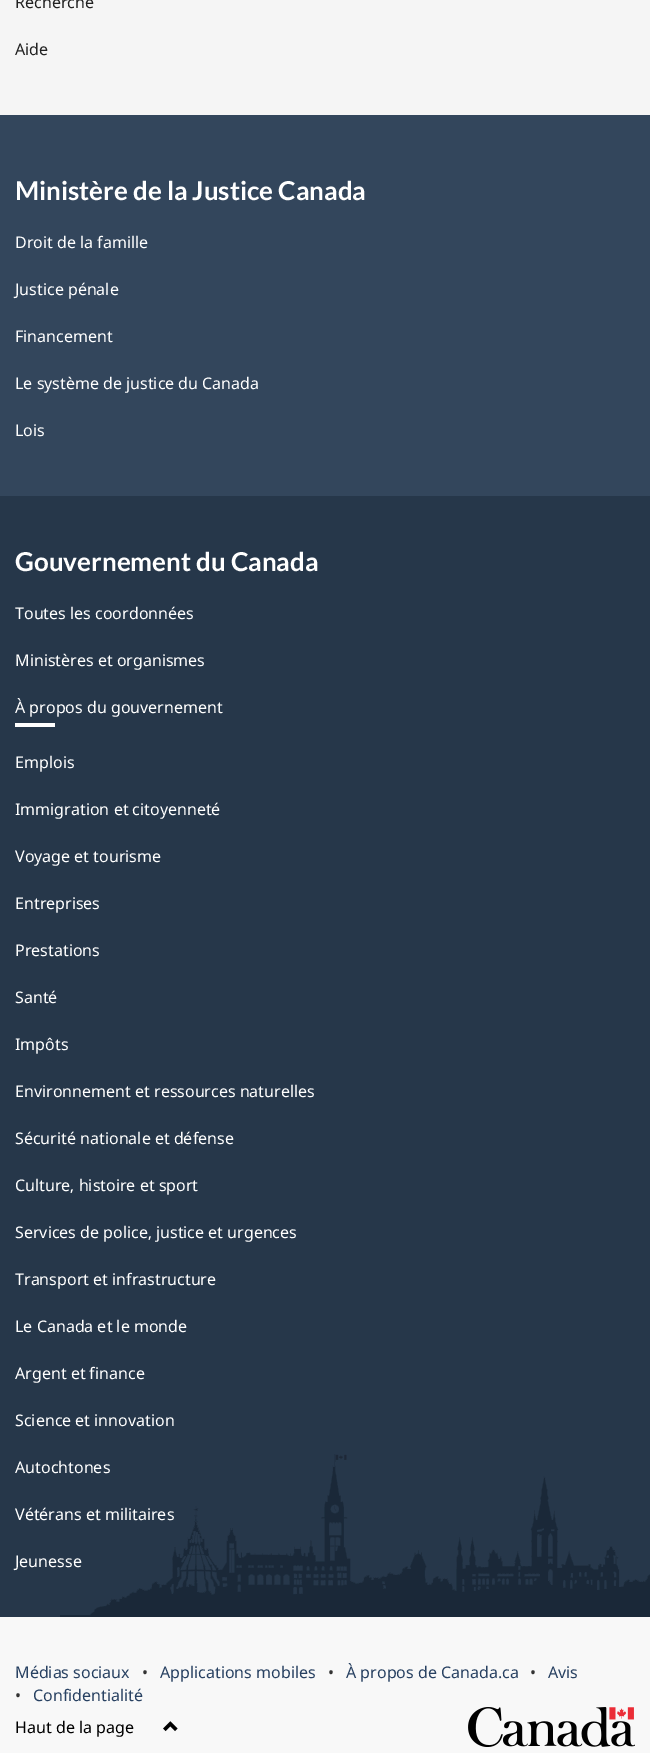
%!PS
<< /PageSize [650 1753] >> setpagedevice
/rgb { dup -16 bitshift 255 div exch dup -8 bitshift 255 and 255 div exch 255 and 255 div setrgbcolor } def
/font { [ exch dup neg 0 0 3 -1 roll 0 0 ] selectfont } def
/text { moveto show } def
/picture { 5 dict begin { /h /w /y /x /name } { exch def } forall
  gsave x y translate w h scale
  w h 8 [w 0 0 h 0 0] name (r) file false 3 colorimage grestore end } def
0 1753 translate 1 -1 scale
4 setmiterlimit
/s1 { /NotoSans-Regular 16 font 16#222222 rgb } def
/s2 { /Lato-Bold 26 font 16#FFFFFF rgb } def
/s3 { /NotoSans-Regular 16 font 16#FFFFFF rgb } def
/s4 { /NotoSans-Regular 16 font 16#284162 rgb } def
/s5 { /NotoSans-Regular 16 font 16#333333 rgb } def
/s6 { /NotoSans-Regular 16 font 16#000000 rgb } def
16#F5F5F5 rgb
0 0 650 1753 rectfill
s1
(Recherche) 15 8 text
(Aide) 15 55 text
16#33465C rgb
0 115 650 381 rectfill
s2
(Ministère de la Justice Canada) 15 200 text
s3
(Droit de la famille) 15 248 text
(Justice pénale) 15 295 text
(Financement) 15 342 text
(Le système de justice du Canada) 15 389 text
(Lois) 15 436 text
16#26374A rgb
0 496 650 1121 rectfill
(pic1.raw) 60 1454 590 163 picture
s2
(Gouvernement du Canada) 15 571 text
s3
(Toutes les coordonnées) 15 619 text
(Ministères et organismes) 15 666 text
(À propos du gouvernement) 15 713 text
15 723 40 4 rectfill
(Emplois) 15 768 text
(Immigration et citoyenneté) 15 815 text
(Voyage et tourisme) 15 862 text
(Entreprises) 15 909 text
(Prestations) 15 956 text
(Santé) 15 1003 text
(Impôts) 15 1050 text
(Environnement et ressources naturelles) 15 1097 text
(Sécurité nationale et défense) 15 1144 text
(Culture, histoire et sport) 15 1191 text
(Services de police, justice et urgences) 15 1238 text
(Transport et infrastructure) 15 1285 text
(Le Canada et le monde) 15 1332 text
(Argent et finance) 15 1379 text
(Science et innovation) 15 1426 text
(Autochtones) 15 1473 text
(Vétérans et militaires) 15 1520 text
(Jeunesse) 15 1567 text
16#F8F8F8 rgb
0 1617 650 136 rectfill
s4
(Médias sociaux) 15 1678 text
s5
(•) 142 1678 text
s4
(Applications mobiles) 160 1678 text
s5
(•) 328 1678 text
s4
(À propos de Canada.ca) 346 1678 text
s5
(•) 530 1678 text
s4
(Avis) 548 1678 text
s5
(•) 15 1701 text
s4
(Confidentialité) 33 1701 text
s6
(Haut de la page) 15 1733 text
(pic2.raw) 163 1721 15 11 picture
(pic3.raw) 468 1707 167 40 picture
showpage
